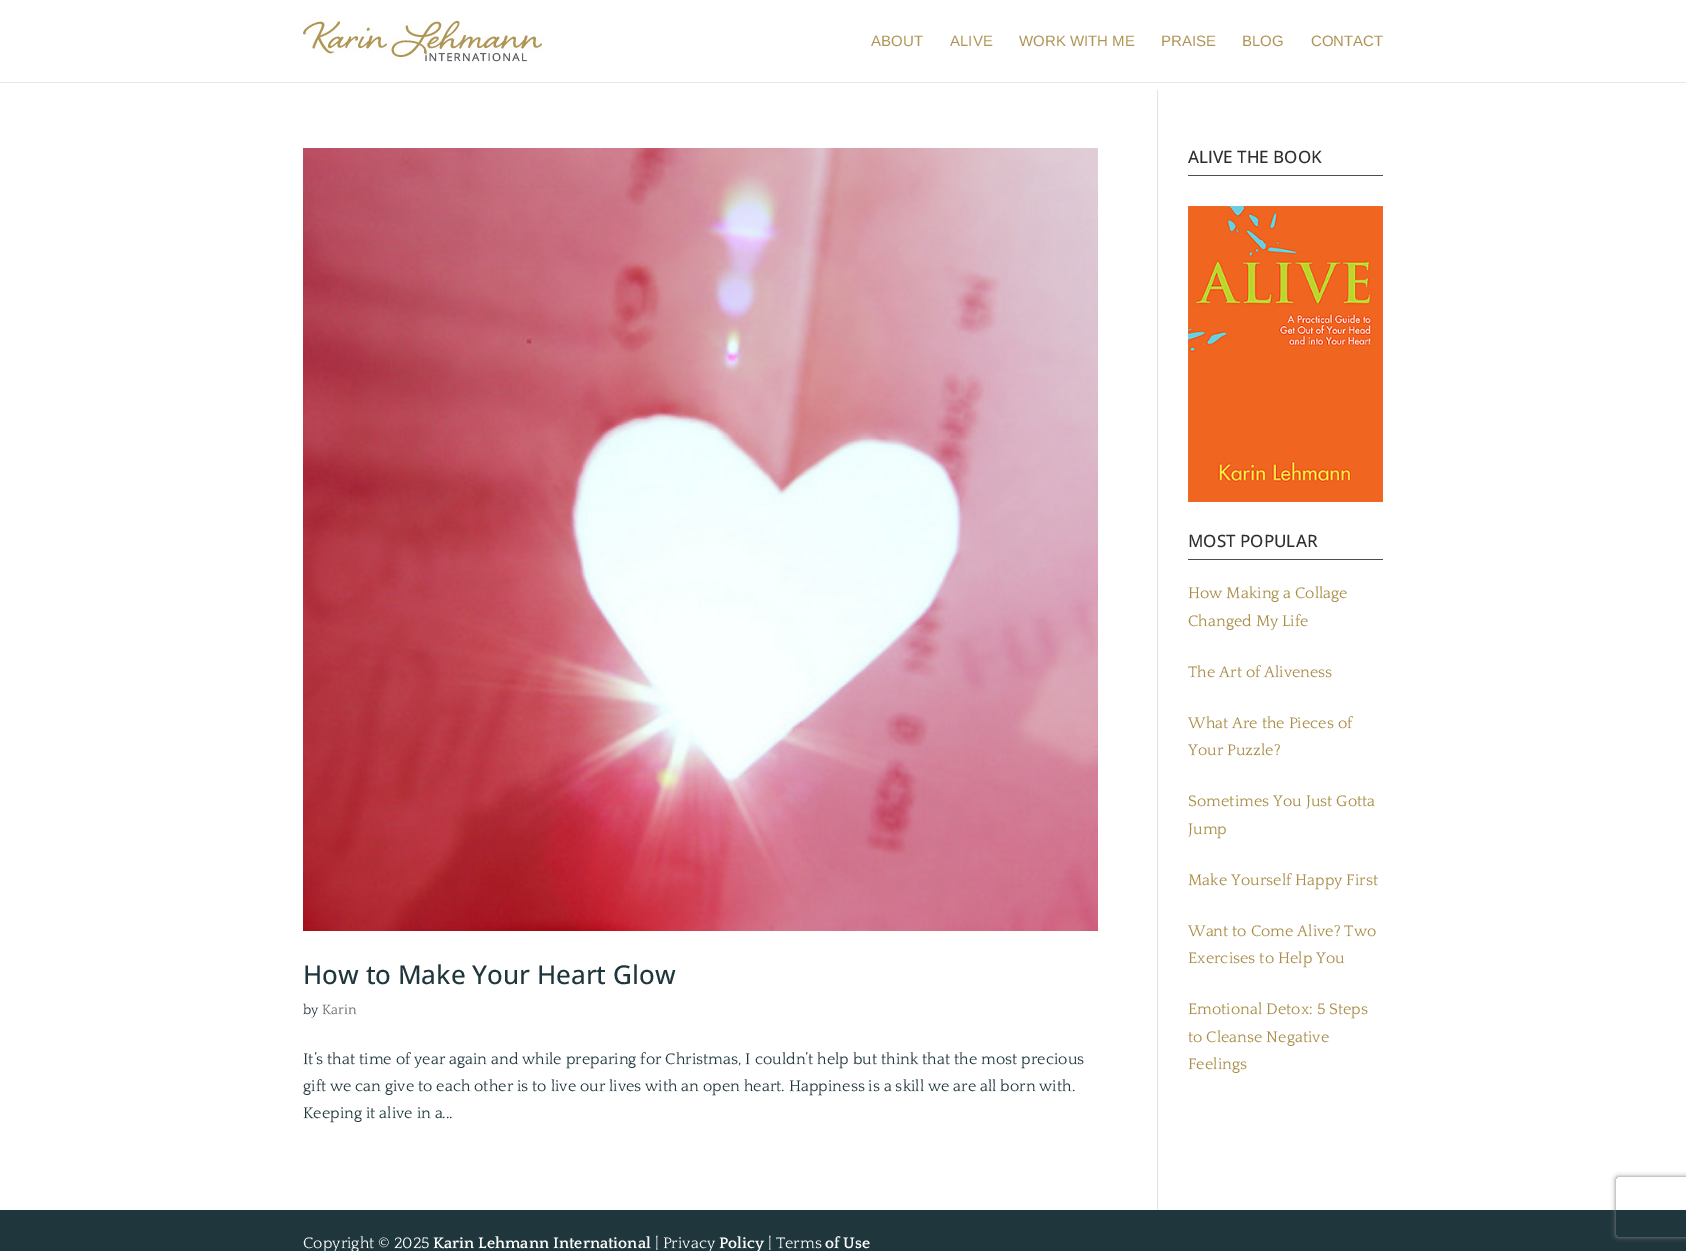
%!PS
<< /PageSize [1686 1251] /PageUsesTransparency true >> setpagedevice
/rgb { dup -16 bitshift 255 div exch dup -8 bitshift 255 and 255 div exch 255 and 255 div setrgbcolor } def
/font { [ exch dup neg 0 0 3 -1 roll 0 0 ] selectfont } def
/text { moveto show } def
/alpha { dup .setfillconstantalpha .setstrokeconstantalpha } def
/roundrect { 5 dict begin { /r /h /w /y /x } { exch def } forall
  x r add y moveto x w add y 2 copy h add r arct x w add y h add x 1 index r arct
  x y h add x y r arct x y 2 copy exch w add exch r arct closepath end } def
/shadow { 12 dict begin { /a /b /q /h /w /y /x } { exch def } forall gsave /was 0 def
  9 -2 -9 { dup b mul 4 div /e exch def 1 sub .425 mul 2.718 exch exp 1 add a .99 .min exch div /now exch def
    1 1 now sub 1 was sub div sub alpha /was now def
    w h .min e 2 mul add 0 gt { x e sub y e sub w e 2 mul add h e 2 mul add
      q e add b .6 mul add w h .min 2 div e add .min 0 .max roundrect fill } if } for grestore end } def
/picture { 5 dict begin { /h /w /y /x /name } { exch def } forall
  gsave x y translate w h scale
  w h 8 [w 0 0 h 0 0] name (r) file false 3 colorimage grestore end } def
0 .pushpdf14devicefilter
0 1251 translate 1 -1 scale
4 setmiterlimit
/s1 { /LiberationSans-Regular 15 font 16#AF9555 rgb } def
/s2 { /OpenSans-Medium 26 font 16#1F363D rgb } def
/s3 { /Quattrocento-Regular 14 font 16#1F363D rgb } def
/s4 { /Quattrocento-Regular 14 font 16#666666 rgb } def
/s5 { /Quattrocento-Regular 16 font 16#1F363D rgb } def
/s6 { /OpenSans-Medium 17 font 16#2E2E2E rgb } def
/s7 { /Quattrocento-Regular 16 font 16#A88B44 rgb } def
/s8 { /Quattrocento-Regular 16 font 16#FFFFFF rgb } def
/s9 { /Quattrocento-Bold 16 font 16#FFFFFF rgb } def
16#FFFFFF rgb
0 0 1686 1251 rectfill
16#E6E6E6 rgb
0 82 1686 1 rectfill
(pic1.raw) 303 20 240 42 picture
s1
(ABOUT) 871 46 text
(ALIVE) 950 46 text
(WORK WITH ME) 1019 46 text
(PRAISE) 1161 46 text
(BLOG) 1242 46 text
(CONTACT) 1311 46 text
16#E2E2E2 rgb
1157 90 1 1120 rectfill
(pic2.raw) 303 148 795 783 picture
s2
(How to Make Your Heart Glow) 303 984 text
s3
(by) 303 1014 text
s4
(Karin) 322 1014 text
s5
(It’s that time of year again and while preparing for Christmas, I couldn’t help but think that the most precious) 303 1064 text
(gift we can give to each other is to live our lives with an open heart. Happiness is a skill we are all born with.) 303 1091 text
(Keeping it alive in a...) 303 1118 text
16#4D4D4D rgb
1188 175 195 1 rectfill
s6
(ALIVE THE BOOK) 1188 163 text
(pic3.raw) 1188 206 195 296 picture
16#4D4D4D rgb
1188 559 195 1 rectfill
s6
(MOST POPULAR) 1188 547 text
s7
(How Making a Collage) 1188 598 text
(Changed My Life) 1188 626 text
(The Art of Aliveness) 1188 677 text
(What Are the Pieces of) 1188 728 text
(Your Puzzle?) 1188 755 text
(Sometimes You Just Gotta) 1188 806 text
(Jump) 1188 834 text
(Make Yourself Happy First) 1188 885 text
(Want to Come Alive? Two) 1188 936 text
(Exercises to Help You) 1188 963 text
(Emotional Detox: 5 Steps) 1188 1014 text
(to Cleanse Negative) 1188 1042 text
(Feelings) 1188 1069 text
16#1F363D rgb
0 1210 1686 41 rectfill
s8
(Copyright © 2025) 303 1248 text
s9
(Karin Lehmann International) 433 1248 text
s8
(| Privacy) 655 1248 text
s9
(Policy) 719 1248 text
s8
(| Terms) 768 1248 text
s9
(of Use) 825 1248 text
gsave
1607 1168 moveto 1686 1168 lineto 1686 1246 lineto 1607 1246 lineto closepath 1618 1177 moveto 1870 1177 lineto 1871 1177 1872 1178 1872 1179 curveto 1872 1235 lineto 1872 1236 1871 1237 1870 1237 curveto 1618 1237 lineto 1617 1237 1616 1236 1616 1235 curveto 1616 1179 lineto 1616 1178 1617 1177 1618 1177 curveto closepath eoclip newpath
16#808080 rgb
1616 1177 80 60 2 2.5 1 shadow
grestore
.poppdf14devicefilter showpage
